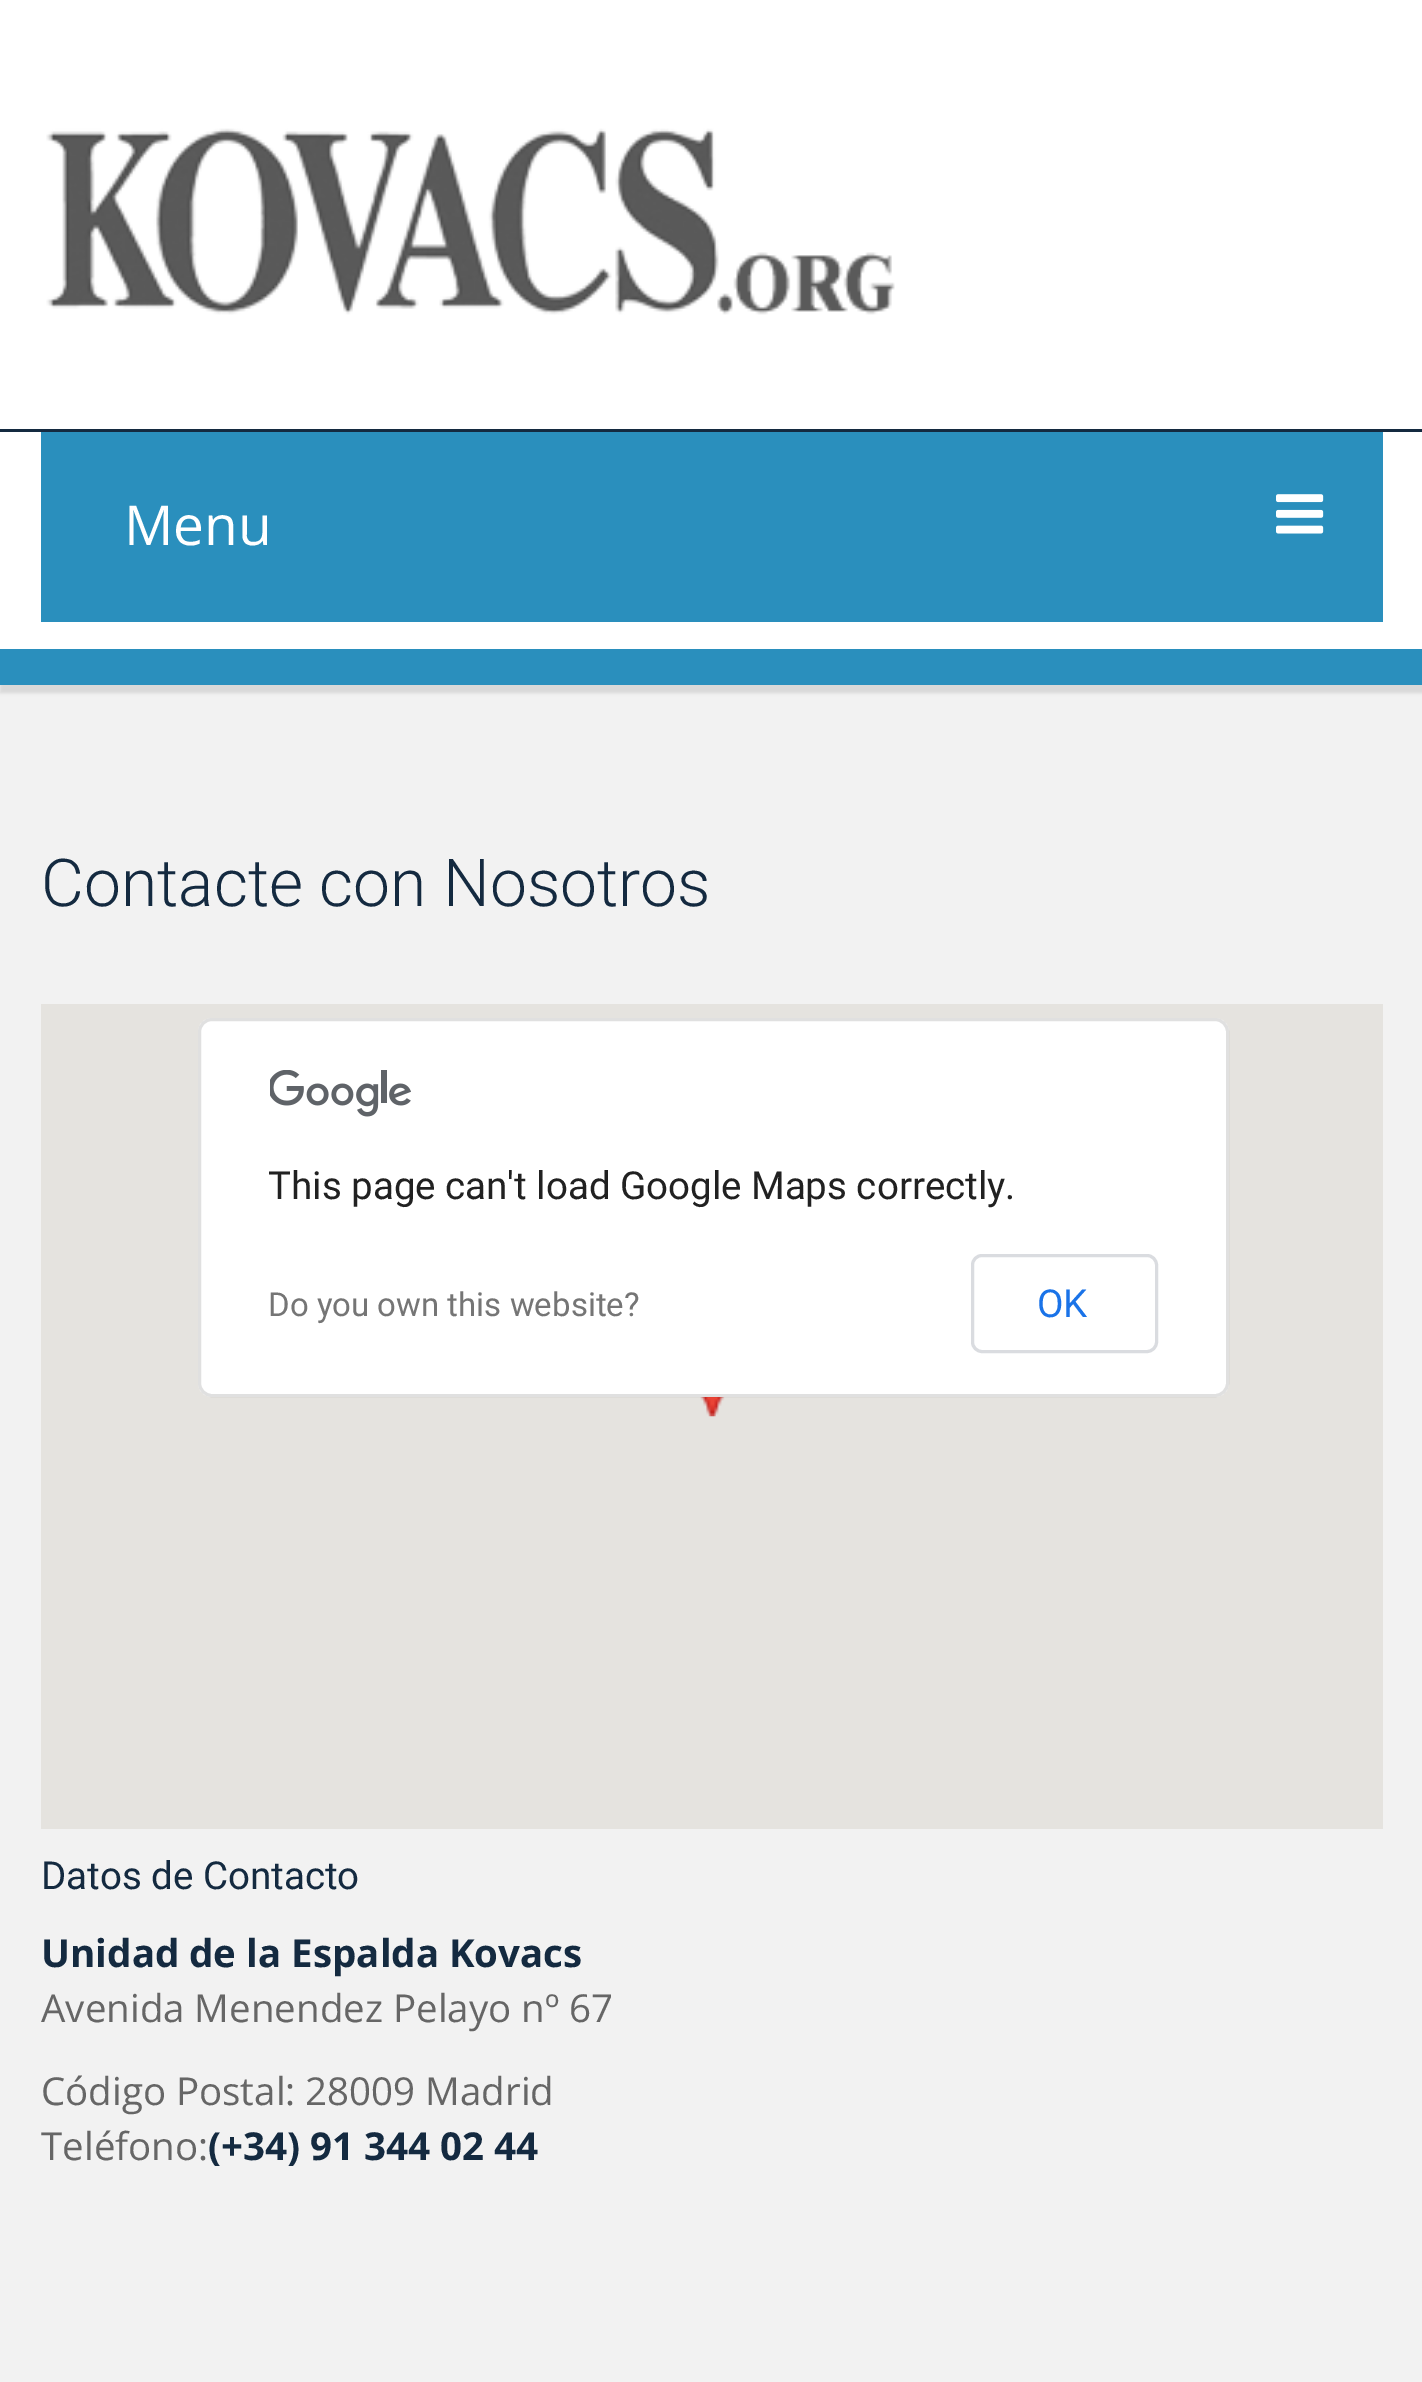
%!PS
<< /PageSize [1422 2382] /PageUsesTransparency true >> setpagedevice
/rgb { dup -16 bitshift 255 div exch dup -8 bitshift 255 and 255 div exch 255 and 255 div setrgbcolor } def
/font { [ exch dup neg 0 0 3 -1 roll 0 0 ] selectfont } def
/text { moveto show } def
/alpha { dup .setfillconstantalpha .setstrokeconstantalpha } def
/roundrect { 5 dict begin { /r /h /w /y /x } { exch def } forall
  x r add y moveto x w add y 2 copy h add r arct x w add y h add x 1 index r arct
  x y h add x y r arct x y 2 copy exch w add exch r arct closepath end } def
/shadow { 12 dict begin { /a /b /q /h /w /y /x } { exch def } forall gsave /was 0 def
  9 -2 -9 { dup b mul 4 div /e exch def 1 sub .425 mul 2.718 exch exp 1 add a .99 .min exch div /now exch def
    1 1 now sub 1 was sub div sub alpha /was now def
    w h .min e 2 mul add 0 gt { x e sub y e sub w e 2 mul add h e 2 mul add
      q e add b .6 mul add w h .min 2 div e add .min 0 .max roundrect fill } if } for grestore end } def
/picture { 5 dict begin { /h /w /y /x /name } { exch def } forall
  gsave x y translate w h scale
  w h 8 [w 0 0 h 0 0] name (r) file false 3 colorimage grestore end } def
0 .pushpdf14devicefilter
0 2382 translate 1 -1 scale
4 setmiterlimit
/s1 { /OpenSans-Regular 55 font 16#FFFFFF rgb } def
/s2 { /Roboto-Light 66 font 16#142A40 rgb } def
/s3 { /Roboto-Regular 38.5 font 16#212121 rgb } def
/s4 { /Roboto-Regular 33 font 16#757575 rgb } def
/s5 { /Roboto-Regular 38.5 font 16#1A73E8 rgb } def
/s6 { /Roboto-Regular 38.5 font 16#142A40 rgb } def
/s7 { /OpenSans-Bold 38.5 font 16#142A40 rgb } def
/s8 { /OpenSans-Regular 38.5 font 16#666666 rgb } def
16#F2F2F2 rgb
0 0 1422 2382 rectfill
16#FFFFFF rgb
0 0 1422 429 rectfill
(pic1.raw) 46 128 849 187 picture
0 432 1422 217 rectfill
16#142A40 rgb
0 429 1422 3 rectfill
16#2A8FBD rgb
41 432 1342 190 rectfill
s1
(Menu) 124 545 text
(pic2.raw) 1276 494 48 40 picture
16#000000 rgb
0 657 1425 36 0 1.5 0.1 shadow
16#2A8FBD rgb
0 649 1422 36 rectfill
s2
(Contacte con Nosotros) 41 906 text
16#E5E3DF rgb
41 1004 1342 825 rectfill
(pic3.raw) 700 1397 25 20 picture
16#FFFFFF rgb
198 1018 1031 379 14 roundrect fill
0.12 alpha
16#000000 rgb
3 setlinewidth
199.5 1019.5 1028 376 12.5 roundrect stroke
1 alpha
(pic4.raw) 270 1070 141 47 picture
s3
(This page can't load Google Maps correctly.) 268 1199 text
s4
(Do you own this website?) 268 1316 text
16#DADCE0 rgb
972.5 1255.5 184 96 9.5 roundrect stroke
s5
(OK) 1037 1317 text
s6
(Datos de Contacto) 41 1889 text
s7
(Unidad de la Espalda Kovacs) 41 1967 text
s8
(Avenida Menendez Pelayo nº 67) 41 2022 text
(Código Postal: 28009 Madrid) 41 2105 text
(Teléfono:) 41 2160 text
s7
(\(+34\) 91 344 02 44) 208 2160 text
.poppdf14devicefilter showpage
